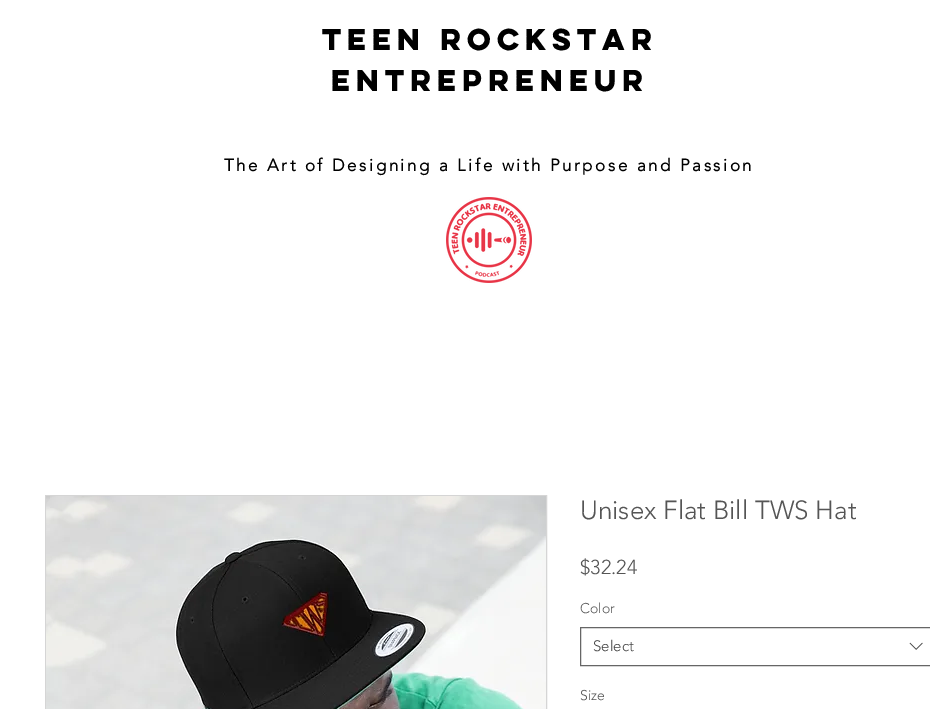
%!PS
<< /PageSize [930 709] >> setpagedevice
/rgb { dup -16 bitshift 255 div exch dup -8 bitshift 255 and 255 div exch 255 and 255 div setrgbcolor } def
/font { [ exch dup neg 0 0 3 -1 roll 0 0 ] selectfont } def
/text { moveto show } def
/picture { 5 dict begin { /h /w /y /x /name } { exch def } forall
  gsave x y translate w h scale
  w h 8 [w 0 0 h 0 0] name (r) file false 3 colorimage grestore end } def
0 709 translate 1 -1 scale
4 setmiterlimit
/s1 { /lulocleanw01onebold-Bold 27 font 16#000000 rgb } def
/s2 { /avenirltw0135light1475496-Light 26 font 16#555555 rgb } def
/s3 { /avenirltw0135light1475496-Light 20 font 16#555555 rgb } def
/s4 { /avenirltw0135light1475496-Light 14 font 16#555555 rgb } def
/s5 { /avenirltw0135light1475496-Light 15 font 16#444444 rgb } def
16#FFFFFF rgb
0 0 930 709 rectfill
s1
(TEEN ROCKSTAR) 322 50 text
(ENTREPRENEUR) 331 91 text
/avenirltw0135light1475496-Bold 17 font
224 171 moveto 2.55 0 (The Art of Designing a Life with Purpose and Passion) ashow
(pic1.raw) 446 197 86 86 picture
16#D5D5D5 rgb
45.5 495.5 501 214 rectstroke
(pic2.raw) 46 496 500 213 picture
s2
(Unisex Flat Bill TWS Hat) 580 519 text
s3
($32.24) 580 574 text
s4
(Color) 580 613 text
16#666666 rgb
580.5 627.5 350 38 rectstroke
s5
(Select) 593 651 text
(pic3.raw) 909 642 14 8 picture
s4
(Size) 580 700 text
showpage
